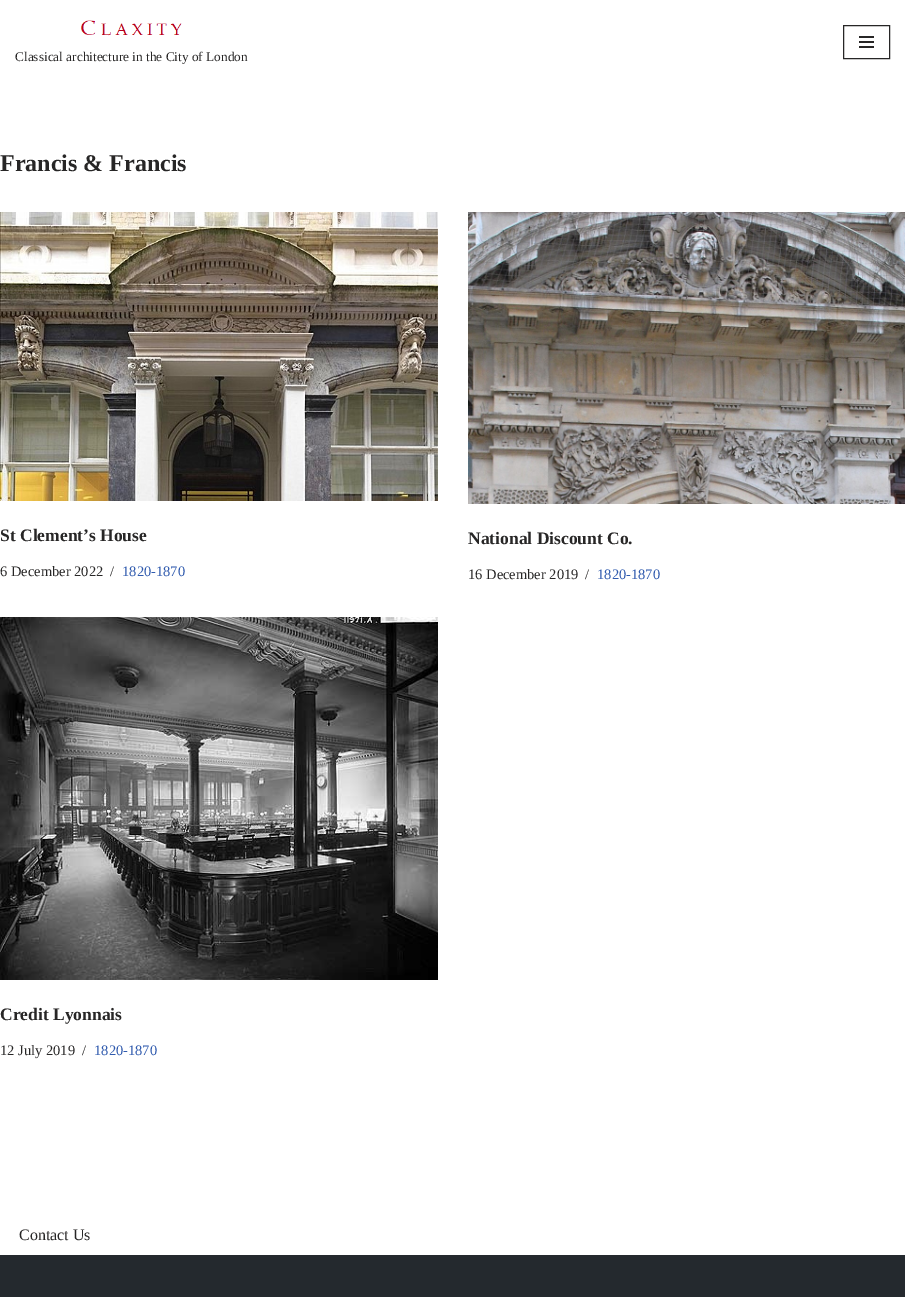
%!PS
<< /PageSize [905 1297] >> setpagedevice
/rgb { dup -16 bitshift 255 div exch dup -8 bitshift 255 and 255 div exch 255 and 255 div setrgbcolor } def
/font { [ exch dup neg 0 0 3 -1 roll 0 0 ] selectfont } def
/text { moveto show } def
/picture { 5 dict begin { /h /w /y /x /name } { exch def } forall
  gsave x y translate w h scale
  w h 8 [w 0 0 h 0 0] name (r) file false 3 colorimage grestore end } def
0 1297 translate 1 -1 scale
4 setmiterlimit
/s1 { /LiberationSerif-Regular 13.3 font 16#272626 rgb } def
/s2 { /LiberationSerif-Bold 24 font 16#272626 rgb } def
/s3 { /LiberationSerif-Bold 17.5 font 16#272626 rgb } def
/s4 { /LiberationSerif-Regular 14.5 font 16#272626 rgb } def
/s5 { /LiberationSerif-Regular 14.5 font 16#2F5AAE rgb } def
/s6 { /LiberationSerif-Regular 16 font 16#272626 rgb } def
16#FFFFFF rgb
0 0 905 1297 rectfill
(pic1.raw) 81 20 101 16 picture
s1
(Classical architecture in the City of London) 15 61 text
843.5 25.5 46 33 rectstroke
859 36 15 2 rectfill
859 41 15 2 rectfill
859 46 15 2 rectfill
s2
(Francis & Francis) 0 171 text
(pic2.raw) 0 212 438 289 picture
s3
(St Clement’s House) 0 541 text
s4
(6 December 2022) 0 576 text
(/) 110 576 text
s5
(1820-1870) 122 576 text
(pic3.raw) 468 212 437 292 picture
s3
(National Discount Co.) 468 544 text
s4
(16 December 2019) 468 579 text
(/) 585 579 text
s5
(1820-1870) 597 579 text
(pic4.raw) 0 617 438 363 picture
s3
(Credit Lyonnais) 0 1020 text
s4
(12 July 2019) 0 1055 text
(/) 82 1055 text
s5
(1820-1870) 94 1055 text
s6
(Contact Us) 19 1240 text
16#24292E rgb
0 1255 905 42 rectfill
showpage
